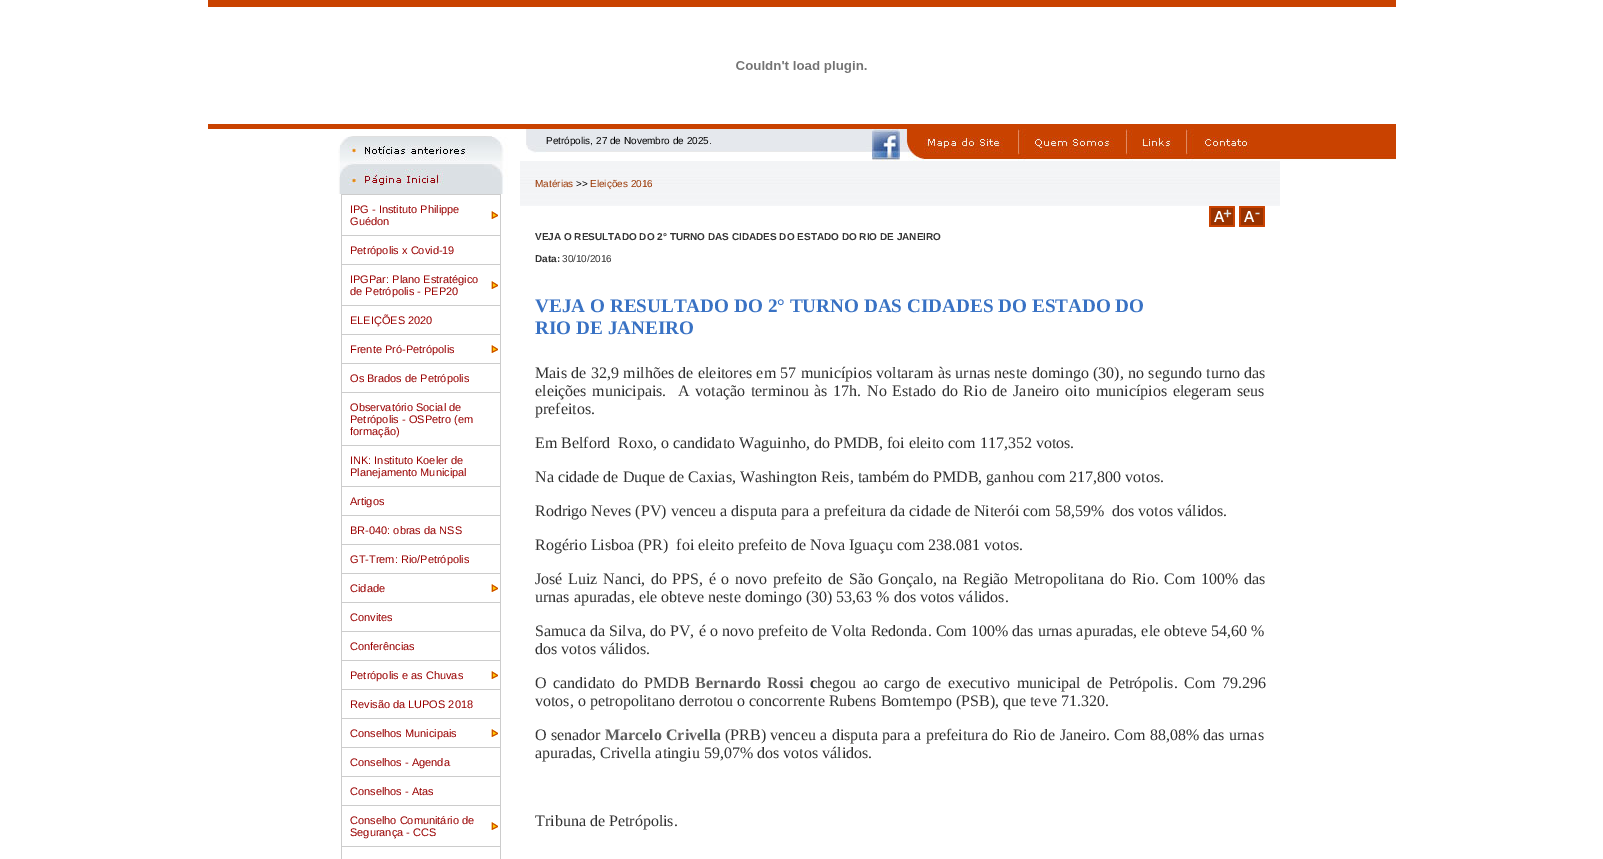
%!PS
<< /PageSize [1603 859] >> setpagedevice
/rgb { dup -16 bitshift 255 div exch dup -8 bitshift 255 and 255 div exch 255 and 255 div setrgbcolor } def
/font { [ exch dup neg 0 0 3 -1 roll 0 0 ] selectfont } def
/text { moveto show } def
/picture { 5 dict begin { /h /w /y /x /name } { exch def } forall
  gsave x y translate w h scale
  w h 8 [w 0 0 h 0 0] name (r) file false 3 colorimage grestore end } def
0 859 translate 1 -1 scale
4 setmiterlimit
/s1 { /LiberationSans-Regular 11 font 16#990000 rgb } def
/s2 { /LiberationSans-Regular 10 font 16#000000 rgb } def
/s3 { /LiberationSans-Regular 10 font 16#993400 rgb } def
/s4 { /LiberationSans-Bold 10 font 16#333333 rgb } def
/s5 { /LiberationSans-Regular 10 font 16#333333 rgb } def
/s6 { /LiberationSerif-Bold 19.2 font 16#3972C4 rgb } def
/s7 { /LiberationSerif-Regular 16 font 16#333333 rgb } def
/s8 { /LiberationSerif-Bold 16 font 16#333333 rgb } def
/s9 { /LiberationSerif-Bold 16 font 16#5D5D5D rgb } def
16#FFFFFF rgb
0 0 1603 859 rectfill
16#C94200 rgb
208 0 1188 7 rectfill
(pic1.raw) 736 61 131 12 picture
208 124 1188 5 rectfill
(pic2.raw) 338 136 170 58 picture
(pic3.raw) 491 211 7 8 picture
16#CCCCCC rgb
341 194 160 1 rectfill
500 194 1 41 rectfill
341 194 1 41 rectfill
s1
(IPG - Instituto Philippe) 350 213 text
(Guédon) 350 225 text
16#CCCCCC rgb
341 235 160 1 rectfill
500 235 1 29 rectfill
341 235 1 29 rectfill
s1
(Petrópolis x Covid-19) 350 254 text
(pic3.raw) 491 281 7 8 picture
16#CCCCCC rgb
341 264 160 1 rectfill
500 264 1 41 rectfill
341 264 1 41 rectfill
s1
(IPGPar: Plano Estratégico) 350 283 text
(de Petrópolis - PEP20) 350 295 text
16#CCCCCC rgb
341 305 160 1 rectfill
500 305 1 29 rectfill
341 305 1 29 rectfill
s1
(ELEIÇÕES 2020) 350 324 text
(pic3.raw) 491 345 7 8 picture
16#CCCCCC rgb
341 334 160 1 rectfill
500 334 1 29 rectfill
341 334 1 29 rectfill
s1
(Frente Pró-Petrópolis) 350 353 text
16#CCCCCC rgb
341 363 160 1 rectfill
500 363 1 29 rectfill
341 363 1 29 rectfill
s1
(Os Brados de Petrópolis) 350 382 text
16#CCCCCC rgb
341 392 160 1 rectfill
500 392 1 53 rectfill
341 392 1 53 rectfill
s1
(Observatório Social de) 350 411 text
(Petrópolis - OSPetro \(em) 350 423 text
(formação\)) 350 435 text
16#CCCCCC rgb
341 445 160 1 rectfill
500 445 1 41 rectfill
341 445 1 41 rectfill
s1
(INK: Instituto Koeler de) 350 464 text
(Planejamento Municipal) 350 476 text
16#CCCCCC rgb
341 486 160 1 rectfill
500 486 1 29 rectfill
341 486 1 29 rectfill
s1
(Artigos) 350 505 text
16#CCCCCC rgb
341 515 160 1 rectfill
500 515 1 29 rectfill
341 515 1 29 rectfill
s1
(BR-040: obras da NSS) 350 534 text
16#CCCCCC rgb
341 544 160 1 rectfill
500 544 1 29 rectfill
341 544 1 29 rectfill
s1
(GT-Trem: Rio/Petrópolis) 350 563 text
(pic3.raw) 491 584 7 8 picture
16#CCCCCC rgb
341 573 160 1 rectfill
500 573 1 29 rectfill
341 573 1 29 rectfill
s1
(Cidade) 350 592 text
16#CCCCCC rgb
341 602 160 1 rectfill
500 602 1 29 rectfill
341 602 1 29 rectfill
s1
(Convites) 350 621 text
16#CCCCCC rgb
341 631 160 1 rectfill
500 631 1 29 rectfill
341 631 1 29 rectfill
s1
(Conferências) 350 650 text
(pic3.raw) 491 671 7 8 picture
16#CCCCCC rgb
341 660 160 1 rectfill
500 660 1 29 rectfill
341 660 1 29 rectfill
s1
(Petrópolis e as Chuvas) 350 679 text
16#CCCCCC rgb
341 689 160 1 rectfill
500 689 1 29 rectfill
341 689 1 29 rectfill
s1
(Revisão da LUPOS 2018) 350 708 text
(pic3.raw) 491 729 7 8 picture
16#CCCCCC rgb
341 718 160 1 rectfill
500 718 1 29 rectfill
341 718 1 29 rectfill
s1
(Conselhos Municipais) 350 737 text
16#CCCCCC rgb
341 747 160 1 rectfill
500 747 1 29 rectfill
341 747 1 29 rectfill
s1
(Conselhos - Agenda) 350 766 text
16#CCCCCC rgb
341 776 160 1 rectfill
500 776 1 29 rectfill
341 776 1 29 rectfill
s1
(Conselhos - Atas) 350 795 text
(pic3.raw) 491 822 7 8 picture
16#CCCCCC rgb
341 805 160 1 rectfill
500 805 1 41 rectfill
341 805 1 41 rectfill
s1
(Conselho Comunitário de) 350 824 text
(Segurança - CCS) 350 836 text
16#CCCCCC rgb
341 846 160 1 rectfill
500 846 1 13 rectfill
341 846 1 13 rectfill
(pic4.raw) 526 129 20 24 picture
16#E5E8ED rgb
546 129 320 22 rectfill
s2
(Petrópolis, 27 de Novembro de 2025.) 546 144 text
16#E9E9E9 rgb
546 151 320 1 rectfill
(pic5.raw) 866 129 6 23 picture
(pic6.raw) 872 129 28 32 picture
(pic7.raw) 900 129 118 32 picture
(pic8.raw) 1018 129 107 32 picture
(pic9.raw) 1125 129 61 32 picture
(pic10.raw) 1186 129 78 32 picture
(pic11.raw) 1264 129 132 31 picture
(pic12.raw) 520 161 760 45 picture
s3
(Matérias) 535 187 text
s2
(>>) 576 187 text
s3
(Eleições 2016) 590 187 text
(pic13.raw) 1209 206 26 21 picture
(pic14.raw) 1239 206 26 21 picture
s4
(VEJA O RESULTADO DO 2° TURNO DAS CIDADES DO ESTADO DO RIO DE JANEIRO) 535 240 text
(Data:) 535 262 text
s5
(30/10/2016) 562 262 text
s6
(VEJA O RESULTADO DO 2° TURNO DAS CIDADES DO ESTADO DO) 535 312 text
(RIO DE JANEIRO) 535 334 text
/LiberationSerif-Regular 16 font
16#333333 rgb
535 378 moveto 0.4 0 32 (Mais de 32,9 milhões de eleitores em 57 municípios voltaram às urnas neste domingo \(30\), no segundo turno das) widthshow
535 396 moveto 1.75 0 32 (eleições municipais.  A votação terminou às 17h. No Estado do Rio de Janeiro oito municípios elegeram seus) widthshow
(prefeitos.) 535 414 text
(Em Belford  Roxo, o candidato Waguinho, do PMDB, foi eleito com 117,352 votos.) 535 448 text
(Na cidade de Duque de Caxias, Washington Reis, também do PMDB, ganhou com 217,800 votos.) 535 482 text
(Rodrigo Neves \(PV\) venceu a disputa para a prefeitura da cidade de Niterói com 58,59%  dos votos válidos.) 535 516 text
(Rogério Lisboa \(PR\)  foi eleito prefeito de Nova Iguaçu com 238.081 votos.) 535 550 text
535 584 moveto 1.6 0 32 (José Luiz Nanci, do PPS, é o novo prefeito de São Gonçalo, na Região Metropolitana do Rio. Com 100% das) widthshow
(urnas apuradas, ele obteve neste domingo \(30\) 53,63 % dos votos válidos.) 535 602 text
535 636 moveto 0.1 0 32 (Samuca da Silva, do PV, é o novo prefeito de Volta Redonda. Com 100% das urnas apuradas, ele obteve 54,60 %) widthshow
(dos votos válidos.) 535 654 text
535 688 moveto 2.5 0 32 (O candidato do PMDB) widthshow
/LiberationSerif-Bold 16 font
16#5D5D5D rgb
695 688 moveto 2.5 0 32 (Bernardo Rossi) widthshow
s8
(c) 810 688 text
/LiberationSerif-Regular 16 font
817 688 moveto 2.5 0 32 (hegou ao cargo de executivo municipal de Petrópolis. Com 79.296) widthshow
(votos, o petropolitano derrotou o concorrente Rubens Bomtempo \(PSB\), que teve 71.320.) 535 706 text
535 740 moveto 0.4 0 32 (O senador) widthshow
s9
(Marcelo Crivella) 605 740 text
/LiberationSerif-Regular 16 font
16#333333 rgb
725 740 moveto 0.4 0 32 (\(PRB\) venceu a disputa para a prefeitura do Rio de Janeiro. Com 88,08% das urnas) widthshow
(apuradas, Crivella atingiu 59,07% dos votos válidos.) 535 758 text
(Tribuna de Petrópolis.) 535 826 text
showpage
